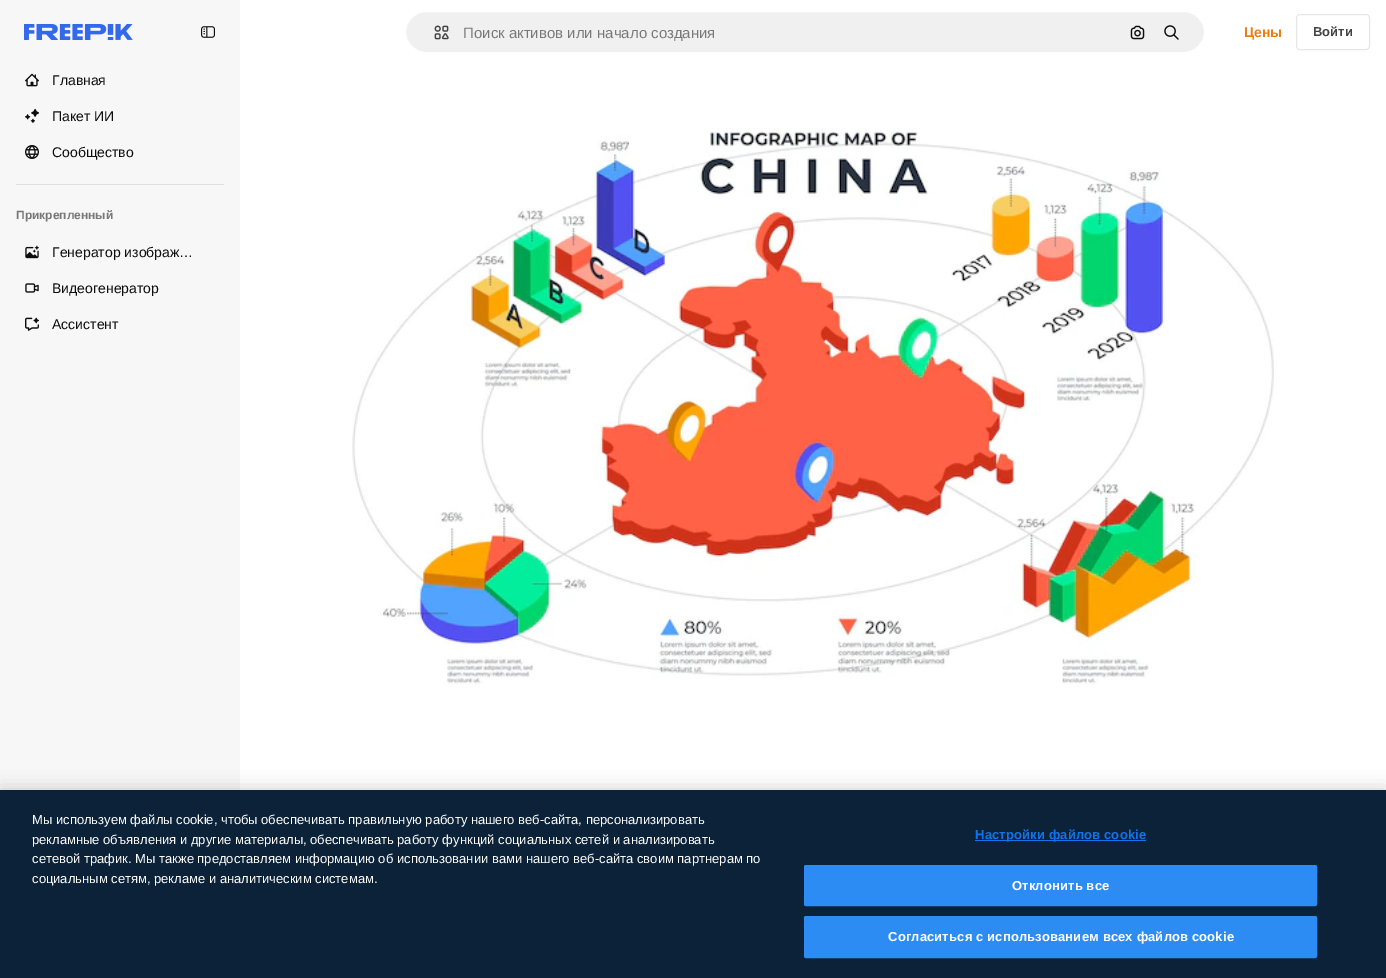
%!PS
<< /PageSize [1386 978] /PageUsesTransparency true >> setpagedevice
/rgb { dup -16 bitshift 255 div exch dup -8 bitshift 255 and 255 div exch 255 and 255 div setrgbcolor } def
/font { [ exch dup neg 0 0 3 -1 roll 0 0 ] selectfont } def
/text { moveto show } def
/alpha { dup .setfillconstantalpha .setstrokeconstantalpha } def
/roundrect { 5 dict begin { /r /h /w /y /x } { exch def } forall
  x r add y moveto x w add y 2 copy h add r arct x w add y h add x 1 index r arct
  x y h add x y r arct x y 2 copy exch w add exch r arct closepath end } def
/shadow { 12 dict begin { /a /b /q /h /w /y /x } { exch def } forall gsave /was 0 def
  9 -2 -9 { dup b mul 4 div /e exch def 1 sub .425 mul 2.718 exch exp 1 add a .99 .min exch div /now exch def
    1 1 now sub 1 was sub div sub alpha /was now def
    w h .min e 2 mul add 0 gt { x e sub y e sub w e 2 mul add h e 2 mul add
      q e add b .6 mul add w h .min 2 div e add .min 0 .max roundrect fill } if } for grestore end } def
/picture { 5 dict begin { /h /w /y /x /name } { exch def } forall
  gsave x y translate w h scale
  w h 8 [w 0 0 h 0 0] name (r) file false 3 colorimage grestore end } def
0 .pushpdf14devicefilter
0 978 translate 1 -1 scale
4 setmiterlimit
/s1 { /LiberationSans-Regular 15 font 16#787878 rgb } def
/s2 { /LiberationSans-Bold 14 font 16#EA7E11 rgb } def
/s3 { /LiberationSans-Bold 13 font 16#424242 rgb } def
/s4 { /LiberationSans-Regular 14 font 16#0D0D0D rgb } def
/s5 { /LiberationSans-Bold 12 font 16#787878 rgb } def
/s6 { /LiberationSans-Regular 13 font 16#FFFFFF rgb } def
16#FFFFFF rgb
0 0 1386 978 rectfill
16#F0F0F0 rgb
405.5 11.5 799 41 20.5 roundrect gsave fill grestore
16#FFFFFF rgb
stroke
(pic1.raw) 434 25 15 15 picture
s1
(Поиск активов или начало создания) 463 38 text
(pic2.raw) 1130 25 15 15 picture
(pic3.raw) 1164 25 15 15 picture
s2
(Цены) 1244 37 text
16#E7E7E7 rgb
1296.5 14.5 73 35 3.5 roundrect stroke
s3
(Войти) 1313 36 text
(pic4.raw) 352 128 922 556 picture
16#F7F7F7 rgb
0 0 240 790 rectfill
(pic5.raw) 24 24 109 16 picture
(pic6.raw) 201 26 14 12 picture
(pic7.raw) 25 73 14 14 picture
s4
(Главная) 52 85 text
(pic8.raw) 25 109 14 14 picture
(Пакет ИИ) 52 121 text
(pic9.raw) 25 145 14 14 picture
(Сообщество) 52 157 text
16#E0E0E0 rgb
16 184 208 1 rectfill
s5
(Прикрепленный) 16 219 text
(pic10.raw) 25 245 14 14 picture
s4
(Генератор изображ…) 52 257 text
(pic11.raw) 25 283 14 10 picture
(Видеогенератор) 52 293 text
(pic12.raw) 25 317 14 14 picture
(Ассистент) 52 329 text
16#000000 rgb
0 790 1386 188 0 9 0.2 shadow
16#0B2239 rgb
0 790 1386 188 rectfill
s6
(Мы используем файлы cookie, чтобы обеспечивать правильную работу нашего веб-сайта, персонализировать) 32 824 text
(рекламные объявления и другие материалы, обеспечивать работу функций социальных сетей и анализировать) 32 844 text
(сетевой трафик. Мы также предоставляем информацию об использовании вами нашего веб-сайта своим партнерам по) 32 863 text
(социальным сетям, рекламе и аналитическим системам.) 32 883 text
16#1273EB rgb
975 840 171 1 rectfill
/LiberationSans-Bold 13 font
975 839 moveto 0.15 0 (Настройки файлов cookie) ashow
16#2C8CF4 rgb
804.5 865.5 512 40 1.5 roundrect gsave fill grestore
stroke
16#FFFFFF rgb
1012 890 moveto 0.15 0 (Отклонить все) ashow
16#2C8CF4 rgb
804.5 916.5 512 41 1.5 roundrect gsave fill grestore
stroke
16#FFFFFF rgb
888 941 moveto 0.15 0 (Согласиться с использованием всех файлов cookie) ashow
.poppdf14devicefilter showpage
